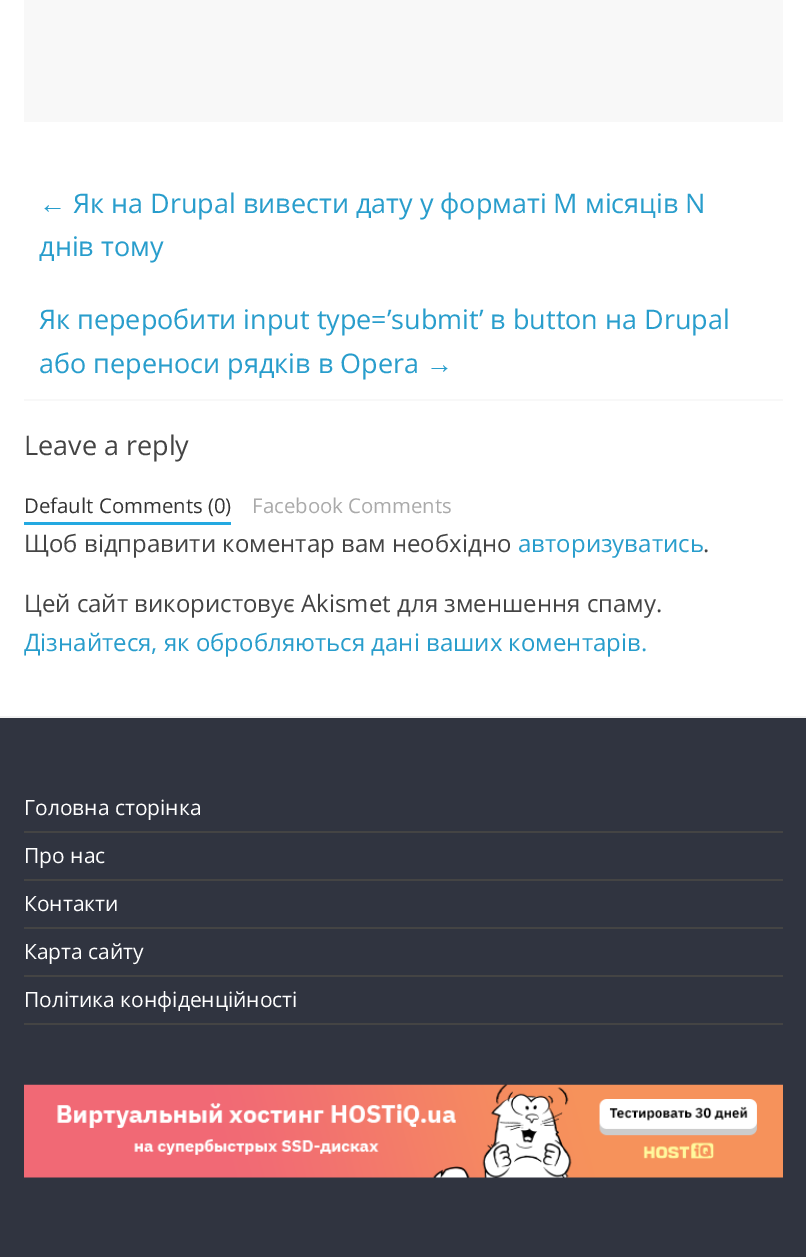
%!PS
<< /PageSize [806 1257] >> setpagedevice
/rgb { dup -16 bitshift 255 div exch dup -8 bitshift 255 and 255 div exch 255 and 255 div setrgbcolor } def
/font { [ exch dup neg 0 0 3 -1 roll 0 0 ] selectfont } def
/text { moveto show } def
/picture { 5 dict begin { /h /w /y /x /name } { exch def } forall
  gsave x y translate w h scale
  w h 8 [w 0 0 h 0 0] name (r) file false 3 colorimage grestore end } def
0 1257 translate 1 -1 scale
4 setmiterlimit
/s1 { /LiberationSerif-Regular 27 font 16#289DCC rgb } def
/s2 { /OpenSans-Regular 27 font 16#289DCC rgb } def
/s3 { /OpenSans-Regular 27 font 16#444444 rgb } def
/s4 { /OpenSans-Regular 20.4 font 16#333333 rgb } def
/s5 { /OpenSans-Regular 20.4 font 16#AAAAAA rgb } def
/s6 { /OpenSans-Regular 24 font 16#444444 rgb } def
/s7 { /OpenSans-Regular 24 font 16#289DCC rgb } def
/s8 { /OpenSans-Regular 21 font 16#FFFFFF rgb } def
16#FFFFFF rgb
0 0 806 1257 rectfill
16#F8F8F8 rgb
24 0 759 122 rectfill
s1
(←) 39 213 text
s2
(Як на Drupal вивести дату у форматі M місяців N) 73 213 text
(днів тому) 39 256 text
(Як переробити input type=’submit’ в button на Drupal) 39 329 text
(або переноси рядків в Opera) 39 373 text
s1
(→) 426 373 text
16#F8F8F8 rgb
24 399 759 2 rectfill
s3
(Leave a reply) 24 455 text
16#23A9E1 rgb
24 522 207 3 rectfill
s4
(Default Comments \(0\)) 24 513 text
s5
(Facebook Comments) 252 513 text
s6
(Щоб відправити коментар вам необхідно) 24 552 text
s7
(авторизуватись) 518 552 text
s6
(.) 703 552 text
(Цей сайт використовує Akismet для зменшення спаму.) 24 612 text
s7
(Дізнайтеся, як обробляються дані ваших коментарів.) 24 651 text
16#303440 rgb
0 718 806 539 rectfill
16#F2F2F2 rgb
0 716 806 2 rectfill
16#444444 rgb
24 831 759 2 rectfill
s8
(Головна сторінка) 24 815 text
16#444444 rgb
24 879 759 2 rectfill
s8
(Про нас) 24 863 text
16#444444 rgb
24 927 759 2 rectfill
s8
(Контакти) 24 911 text
16#444444 rgb
24 975 759 2 rectfill
s8
(Карта сайту) 24 959 text
16#444444 rgb
24 1023 759 2 rectfill
s8
(Політика конфіденційності) 24 1007 text
(pic1.raw) 24 1084 759 94 picture
showpage
